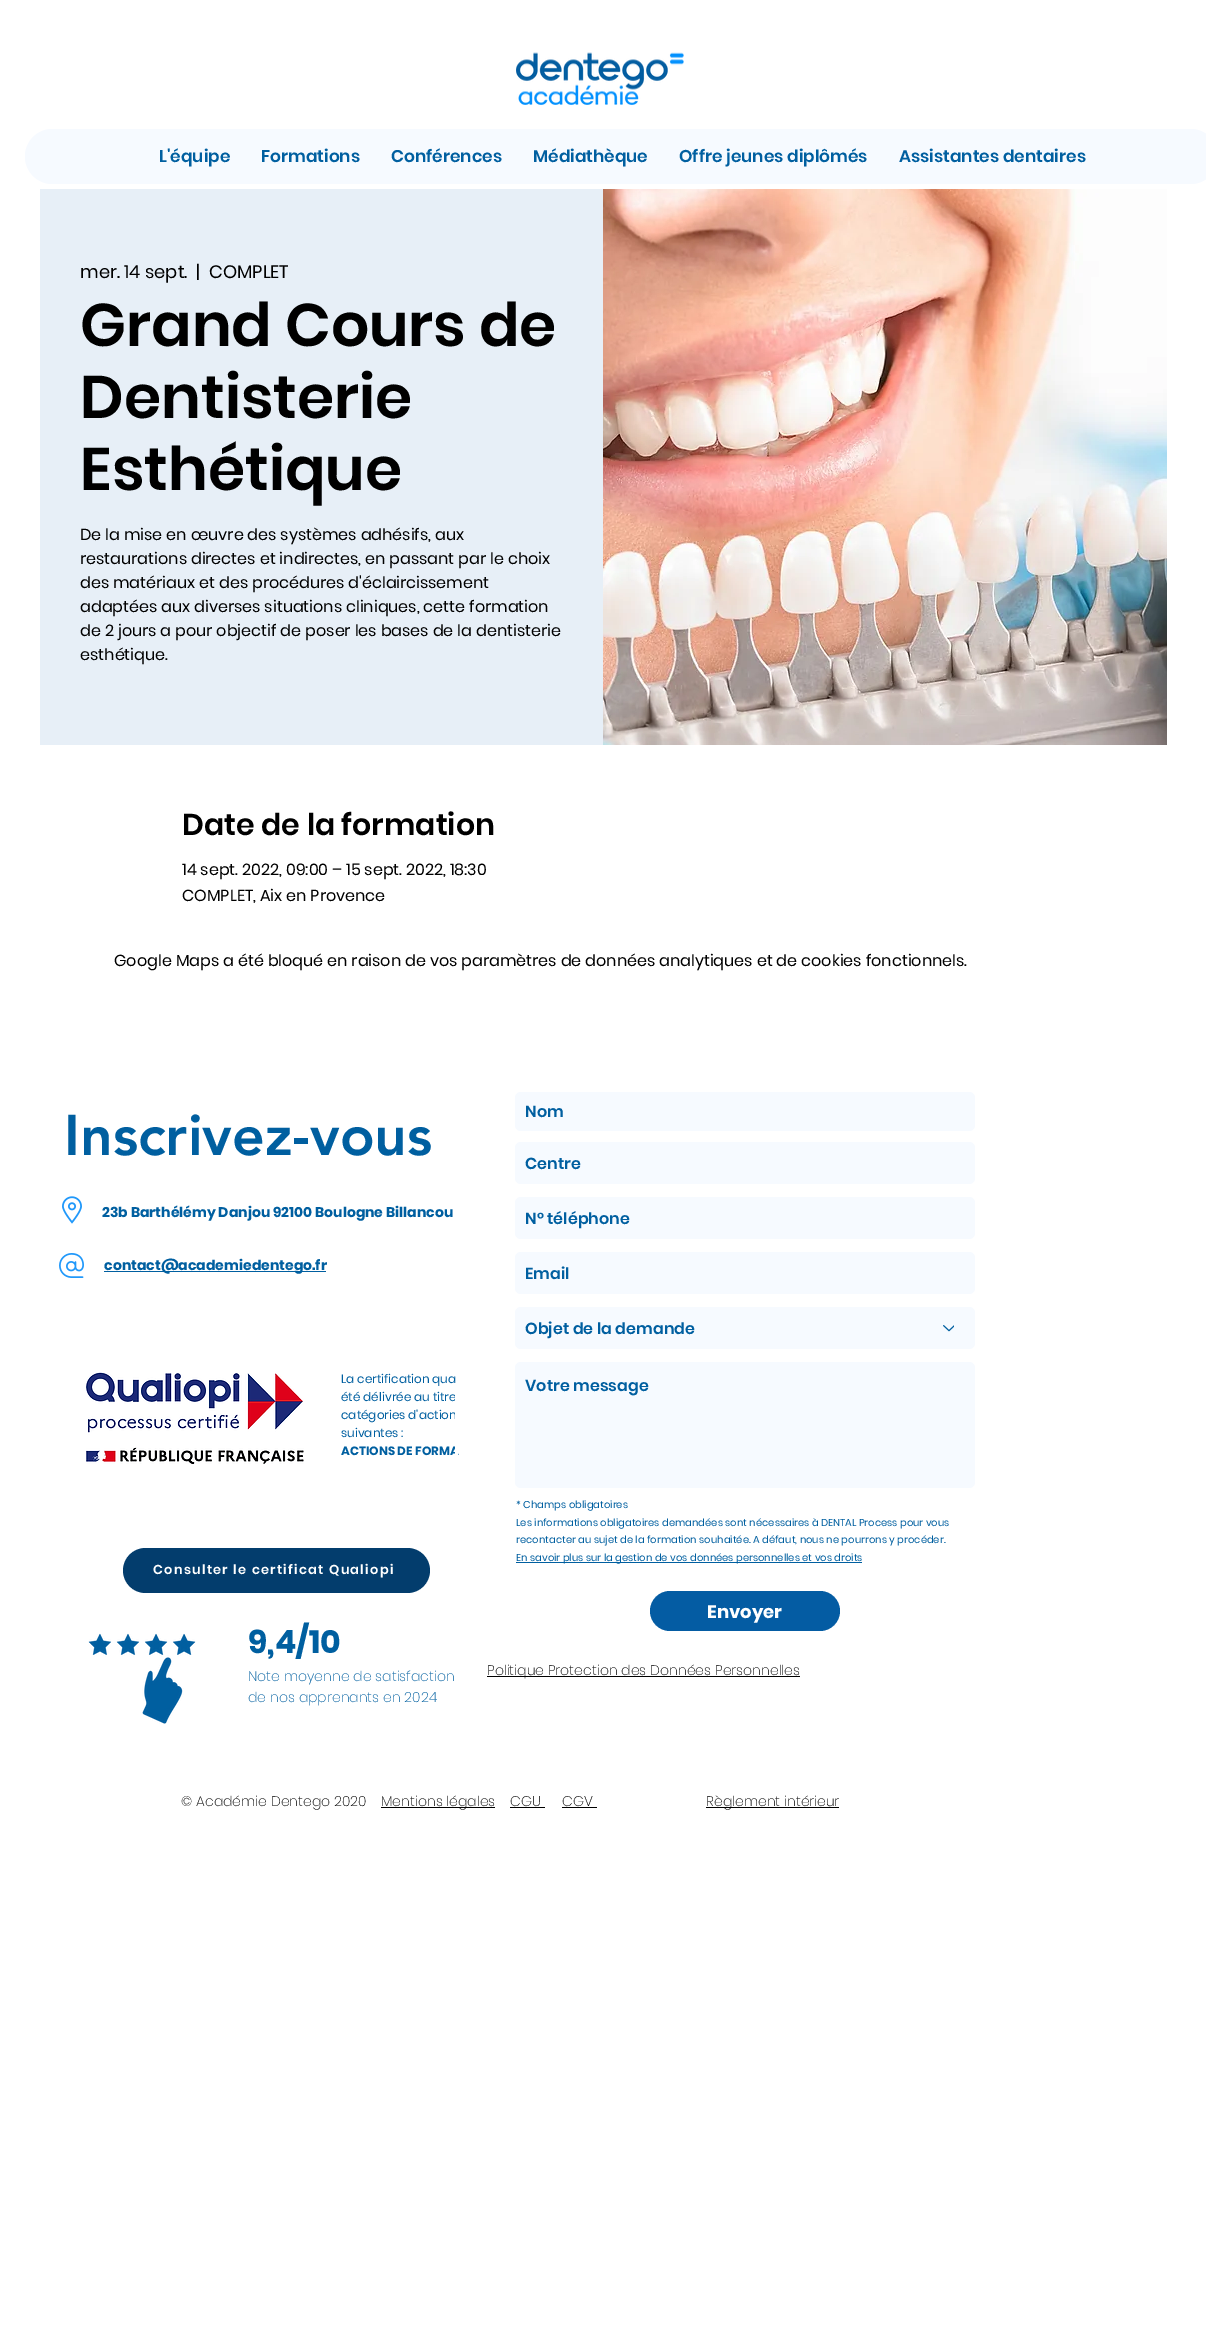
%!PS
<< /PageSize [1206 2333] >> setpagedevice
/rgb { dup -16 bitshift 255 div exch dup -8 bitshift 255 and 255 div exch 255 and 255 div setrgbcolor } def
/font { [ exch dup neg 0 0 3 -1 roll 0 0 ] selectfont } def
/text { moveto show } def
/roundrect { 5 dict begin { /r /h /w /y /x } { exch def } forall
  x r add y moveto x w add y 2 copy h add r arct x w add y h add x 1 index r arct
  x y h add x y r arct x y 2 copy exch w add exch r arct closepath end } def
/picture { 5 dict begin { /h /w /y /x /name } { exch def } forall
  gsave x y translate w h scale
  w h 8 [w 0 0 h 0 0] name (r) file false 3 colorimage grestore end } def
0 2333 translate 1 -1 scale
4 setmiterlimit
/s1 { /Poppins-SemiBold 17 font 16#005FA0 rgb } def
/s2 { /Poppins-Regular 18 font 16#000000 rgb } def
/s3 { /Poppins-SemiBold 60 font 16#000000 rgb } def
/s4 { /Poppins-Regular 16 font 16#000000 rgb } def
/s5 { /Poppins-SemiBold 30 font 16#000000 rgb } def
/s6 { /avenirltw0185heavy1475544-Black 57 font 16#005FA0 rgb } def
/s7 { /Poppins-Bold 14 font 16#005FA0 rgb } def
/s8 { /Poppins-Regular 12 font 16#005FA0 rgb } def
/s9 { /Poppins-Bold 12 font 16#005FA0 rgb } def
/s10 { /Poppins-Bold 32 font 16#005FA0 rgb } def
/s11 { /Poppins-ExtraLight 14 font 16#005FA0 rgb } def
/s12 { /Poppins-SemiBold 16 font 16#005FA0 rgb } def
/s13 { /Poppins-Regular 10 font 16#005FA0 rgb } def
/s14 { /Poppins-Bold 18 font 16#FFFFFF rgb } def
/s15 { /Poppins-ExtraLight 14 font 16#000000 rgb } def
16#FFFFFF rgb
0 0 1206 2333 rectfill
(pic1.raw) 516 52 168 53 picture
16#F6FAFF rgb
25 129 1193 55 27.5 roundrect fill
s1
(L'équipe) 159 162 text
(Formations) 261 162 text
(Conférences) 391 162 text
(Médiathèque) 533 162 text
(Offre jeunes diplômés) 679 162 text
(Assistantes dentaires) 899 162 text
16#E7EFF7 rgb
40 189 563 556 rectfill
s2
(mer. 14 sept.) 80 278 text
(|) 196 278 text
(COMPLET) 209 278 text
s3
(Grand Cours de) 80 346 text
(Dentisterie) 80 418 text
(Esthétique) 80 490 text
s4
(De la mise en œuvre des systèmes adhésifs, aux) 80 540 text
(restaurations directes et indirectes, en passant par le choix) 80 564 text
(des matériaux et des procédures d'éclaircissement) 80 588 text
(adaptées aux diverses situations cliniques, cette formation) 80 612 text
(de 2 jours a pour objectif de poser les bases de la dentisterie) 80 636 text
(esthétique.) 80 660 text
(pic2.raw) 603 189 564 556 picture
s5
(Date de la formation) 182 835 text
s4
(14 sept. 2022, 09:00 – 15 sept. 2022, 18:30) 182 875 text
(COMPLET, Aix en Provence) 182 901 text
(Google Maps a été bloqué en raison de vos paramètres de données analytiques et de cookies fonctionnels.) 114 966 text
s6
(Inscrivez-vous) 64 1155 text
(pic3.raw) 62 1196 20 28 picture
s7
(23b Barthélémy Danjou 92100 Boulogne Billancou) 102 1217 text
(pic4.raw) 59 1253 25 25 picture
104 1271 222 1 rectfill
(contact@academiedentego.fr) 104 1270 text
(pic5.raw) 86 1372 218 92 picture
s8
(La certification qua) 341 1383 text
(été délivrée au titre) 341 1401 text
(catégories d'action) 341 1419 text
(suivantes :) 341 1437 text
s9
(ACTIONS DE FORMA) 341 1455 text
16#033D6D rgb
123 1548 307 45 22.5 roundrect fill
/Poppins-SemiBold 13 font
16#FFFFFF rgb
153 1574 moveto 1.3 0 (Consulter le certificat Qualiopi) ashow
(pic6.raw) 88 1633 108 91 picture
s10
(9,4/10) 248 1653 text
s11
(Note moyenne de satisfaction) 248 1681 text
(de nos apprenants en 2024) 248 1702 text
16#FFFFFF rgb
455 1395 3 60 rectfill
16#F6FAFF rgb
515 1092 460 39 6 roundrect fill
s12
(Nom) 525 1117 text
16#F6FAFF rgb
515 1142 460 42 6 roundrect fill
s12
(Centre) 525 1169 text
16#F6FAFF rgb
515 1197 460 42 6 roundrect fill
s12
(N° téléphone) 525 1224 text
16#F6FAFF rgb
515 1252 460 42 6 roundrect fill
s12
(Email) 525 1279 text
16#F6FAFF rgb
515 1307 460 42 6 roundrect fill
s12
(Objet de la demande) 525 1334 text
(pic7.raw) 943 1325 11 7 picture
16#F6FAFF rgb
515 1362 460 126 6 roundrect fill
s12
(Votre message) 525 1391 text
s13
(* Champs obligatoires) 516 1508 text
(Les informations obligatoires demandées sont nécessaires à DENTAL Process pour vous) 516 1526 text
(recontacter au sujet de la formation souhaitée. A défaut, nous ne pourrons y procéder.) 516 1543 text
516 1562 346 1 rectfill
(En savoir plus sur la gestion de vos données personnelles et vos droits) 516 1561 text
16#045CA3 rgb
650 1591 190 40 20 roundrect fill
s14
(Envoyer) 707 1618 text
16#000000 rgb
487 1676 313 1 rectfill
s15
(Politique Protection des Données Personnelles) 487 1675 text
(© Académie Dentego 2020) 181 1806 text
381 1807 114 1 rectfill
(Mentions légales) 381 1806 text
(CGU) 510 1806 text
510 1807 35 1 rectfill
(CGV) 562 1806 text
562 1807 35 1 rectfill
706 1807 133 1 rectfill
(Règlement intérieur) 706 1806 text
showpage
